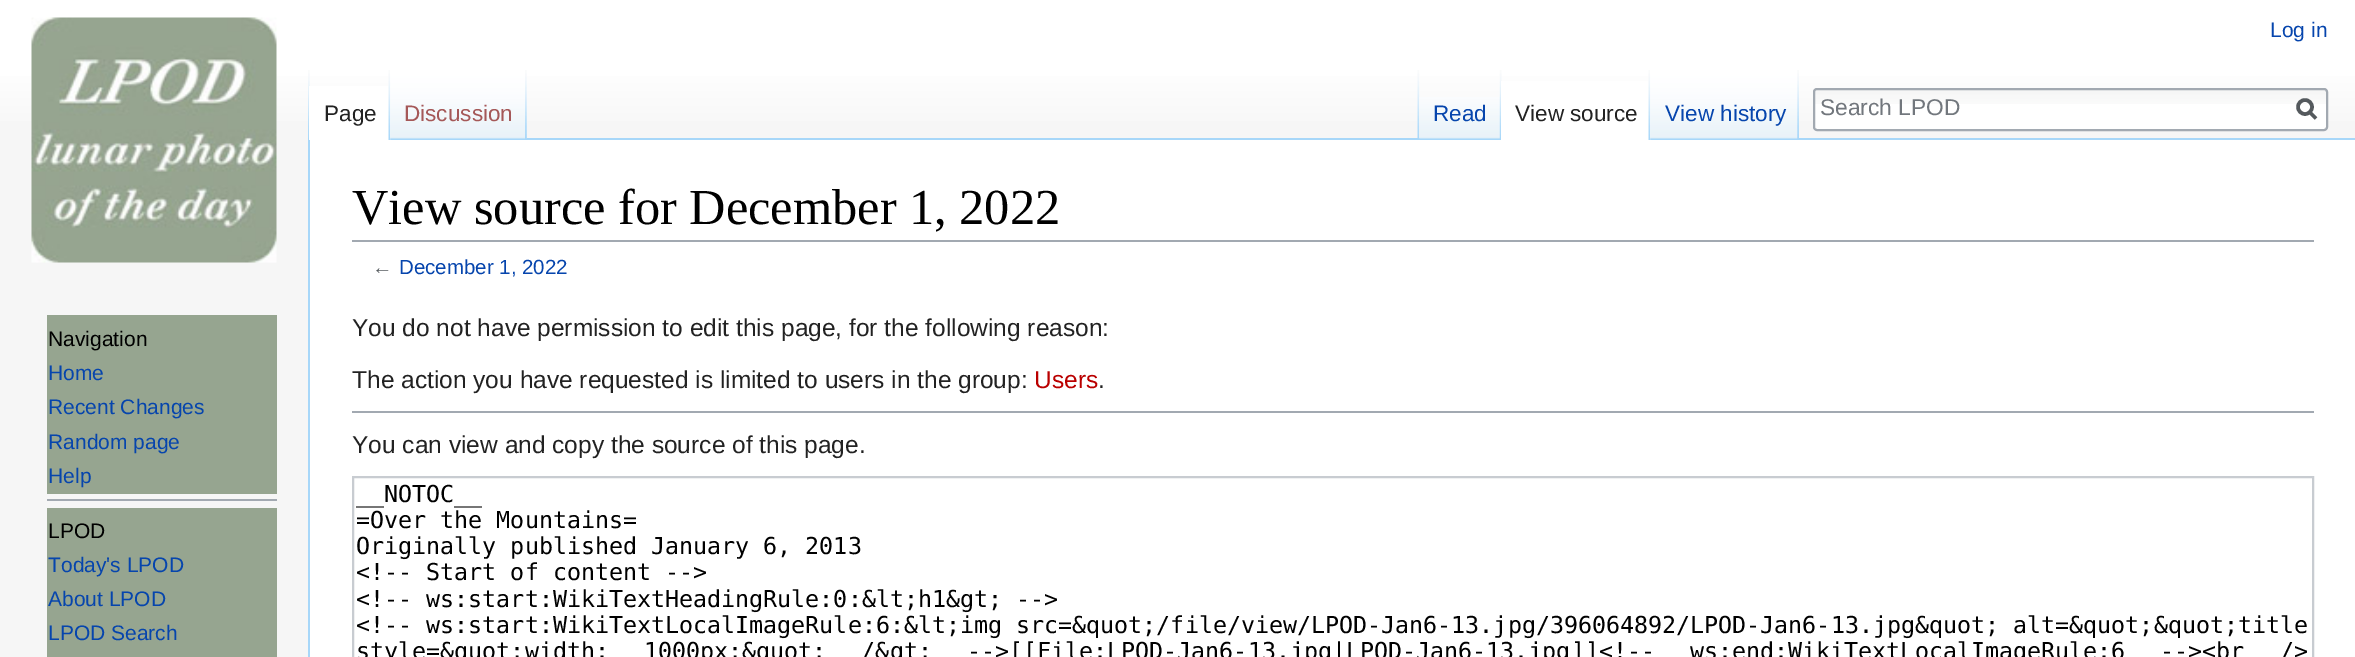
%!PS
<< /PageSize [2355 657] >> setpagedevice
/rgb { dup -16 bitshift 255 div exch dup -8 bitshift 255 and 255 div exch 255 and 255 div setrgbcolor } def
/font { [ exch dup neg 0 0 3 -1 roll 0 0 ] selectfont } def
/text { moveto show } def
/circle { newpath 0 360 arc closepath } def
/roundrect { 5 dict begin { /r /h /w /y /x } { exch def } forall
  x r add y moveto x w add y 2 copy h add r arct x w add y h add x 1 index r arct
  x y h add x y r arct x y 2 copy exch w add exch r arct closepath end } def
/picture { 5 dict begin { /h /w /y /x /name } { exch def } forall
  gsave x y translate w h scale
  w h 8 [w 0 0 h 0 0] name (r) file false 3 colorimage grestore end } def
0 657 translate 1 -1 scale
4 setmiterlimit
/s1 { /LiberationSans-Regular 21 font 16#0645AD rgb } def
/s2 { /LiberationSans-Regular 22.5 font 16#222222 rgb } def
/s3 { /LiberationSans-Regular 22.5 font 16#A55858 rgb } def
/s4 { /LiberationSans-Regular 22.5 font 16#0645AD rgb } def
/s5 { /LiberationSans-Regular 22.75 font 16#72777D rgb } def
/s6 { /LiberationSans-Regular 21 font 16#000000 rgb } def
/s7 { /LiberationSerif-Regular 50.4 font 16#000000 rgb } def
/s8 { /LiberationSans-Regular 20.5 font 16#54595D rgb } def
/s9 { /LiberationSans-Regular 20.5 font 16#0645AD rgb } def
/s10 { /LiberationSans-Regular 24.5 font 16#222222 rgb } def
/s11 { /LiberationSans-Regular 24.5 font 16#BA0000 rgb } def
/s12 { /DejaVuSansMono-Regular 23.33 font 16#000000 rgb } def
16#F6F6F6 rgb
0 0 2355 657 rectfill
gsave 0 0 moveto 2355 0 lineto 2355 121 lineto 0 121 lineto closepath clip newpath
<< /ShadingType 2 /ColorSpace /DeviceRGB /Coords [1178 0 1178 140] /Extend [true true] /Function << /FunctionType 3 /Domain [0 1] /Functions [<< /FunctionType 2 /Domain [0 1] /C0 [1 1 1] /C1 [1 1 1] /N 1 >> << /FunctionType 2 /Domain [0 1] /C0 [1 1 1] /C1 [0.965 0.965 0.965] /N 1 >>] /Bounds [0.5] /Encode [0 1 0 1] >> >> shfill grestore
s1
(Log in) 2270 37 text
(pic1.raw) 308 70 2 68 picture
(pic2.raw) 526 70 1 68 picture
16#A7D7F9 rgb
308 138 2 519 rectfill
16#FFFFFF rgb
309 86 82 54 rectfill
(pic3.raw) 388 70 3 70 picture
s2
(Page) 324 121 text
16#A7D7F9 rgb
526 138 1829 2 rectfill
(pic4.raw) 390 70 137 70 picture
(pic5.raw) 525 70 2 69 picture
s3
(Discussion) 404 121 text
(pic6.raw) 1417 70 3 68 picture
(pic7.raw) 1419 97 81 42 picture
(pic8.raw) 1499 70 3 69 picture
s4
(Read) 1433 121 text
16#FFFFFF rgb
1501 81 150 59 rectfill
(pic9.raw) 1648 70 3 70 picture
s2
(View source) 1515 121 text
(pic10.raw) 1650 70 149 70 picture
(pic11.raw) 1797 70 2 69 picture
s4
(View history) 1665 121 text
16#FFFFFF rgb
1813 88 515 43 4 roundrect fill
(pic12.raw) 1813 89 514 15 picture
16#A2A9B1 rgb
2 setlinewidth
1814 89 513 41 3 roundrect stroke
s5
(Search LPOD) 1820 115 text
16#54595D rgb
3.5 setlinewidth
2316 118.5 moveto 2309 111.5 lineto stroke
2305 107 7 circle stroke
(pic13.raw) 31 17 246 246 picture
16#96A590 rgb
47 315 230 179 rectfill
s6
(Navigation) 48 346 text
s1
(Home) 48 380 text
(Recent Changes) 48 414 text
(Random page) 48 449 text
(Help) 48 483 text
16#A2A9B1 rgb
47 499 230 2 rectfill
16#96A590 rgb
47 508 230 149 rectfill
s6
(LPOD) 48 538 text
s1
(Today's LPOD) 48 572 text
(About LPOD) 48 606 text
(LPOD Search) 48 640 text
16#FFFFFF rgb
310 140 2045 517 rectfill
16#A2A9B1 rgb
352 240 1962 2 rectfill
s7
(View source for December 1, 2022) 352 224 text
s8
(←) 372 274 text
s9
(December 1, 2022) 399 274 text
s10
(You do not have permission to edit this page, for the following reason:) 352 336 text
(The action you have requested is limited to users in the group:) 352 388 text
s11
(Users) 1034 388 text
s10
(.) 1098 388 text
16#A2A9B1 rgb
352 411 1962 2 rectfill
s10
(You can view and copy the source of this page.) 352 453 text
16#C8CCD1 rgb
2 setlinewidth
353 477 1960 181 rectstroke
s12
(__NOTOC__) 356 502 text
(=Over the Mountains=) 356 528 text
(Originally published January 6, 2013) 356 554 text
(<!-- Start of content -->) 356 580 text
(<!-- ws:start:WikiTextHeadingRule:0:&lt;h1&gt; -->) 356 607 text
(<!-- ws:start:WikiTextLocalImageRule:6:&lt;img src=&quot;/file/view/LPOD-Jan6-13.jpg/396064892/LPOD-Jan6-13.jpg&quot; alt=&quot;&quot;) 356 633 text
(title) 2238 633 text
356 659 moveto 21 0 32 (style=&quot;width: 1000px;&quot; /&gt; -->[[File:LPOD-Jan6-13.jpg|LPOD-Jan6-13.jpg]]<!-- ws:end:WikiTextLocalImageRule:6 --><br />) widthshow
showpage
